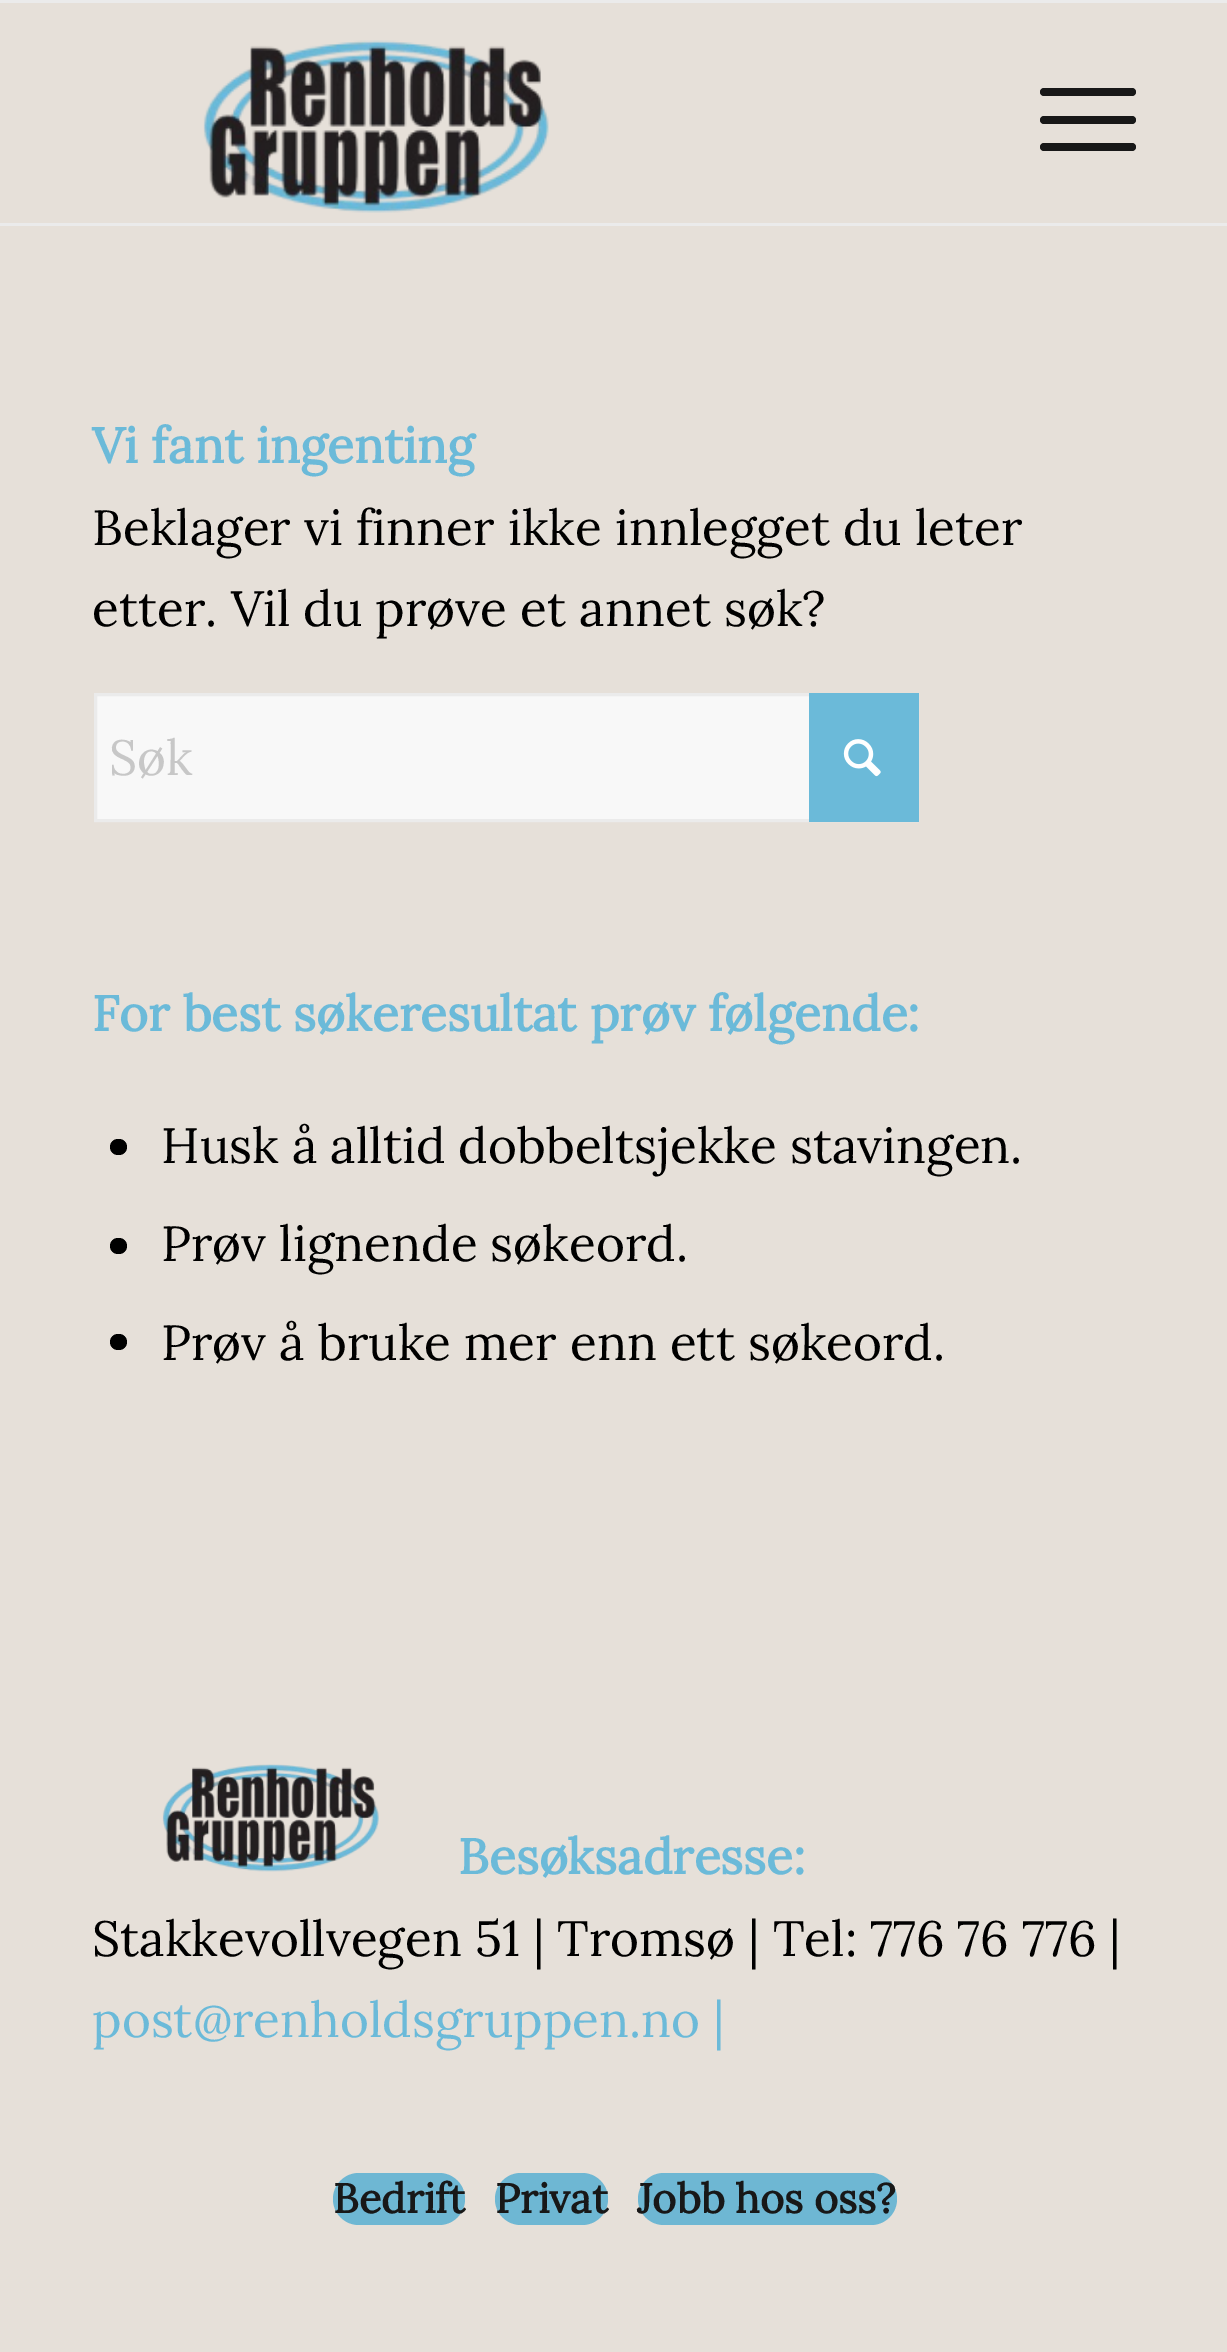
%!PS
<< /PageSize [1227 2352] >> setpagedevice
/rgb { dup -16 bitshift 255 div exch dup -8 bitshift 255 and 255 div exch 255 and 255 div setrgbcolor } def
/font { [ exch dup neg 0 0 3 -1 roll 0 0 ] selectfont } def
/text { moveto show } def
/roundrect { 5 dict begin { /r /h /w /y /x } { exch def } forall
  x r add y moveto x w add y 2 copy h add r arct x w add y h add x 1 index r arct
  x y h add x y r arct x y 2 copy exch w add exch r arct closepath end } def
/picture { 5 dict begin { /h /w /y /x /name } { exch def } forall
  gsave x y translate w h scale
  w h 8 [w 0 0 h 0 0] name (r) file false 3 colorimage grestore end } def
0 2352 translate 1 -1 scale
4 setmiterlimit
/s1 { /Lora-Bold 49.5 font 16#6BBAD9 rgb } def
/s2 { /Lora-Regular 49.5 font 16#000000 rgb } def
/s3 { /Lora-Regular 49.5 font 16#C7C7C7 rgb } def
/s4 { /Lora-Regular 49.5 font 16#6BBAD9 rgb } def
/s5 { /Lora-Bold 41.25 font 16#181818 rgb } def
16#E6E0D9 rgb
0 0 1227 2352 rectfill
16#EBEBEB rgb
0 0 1227 3 rectfill
0 223 1227 3 rectfill
(pic1.raw) 203 40 346 173 picture
16#181818 rgb
1040 116 96 8 4 roundrect fill
1040 88 96 8 4 roundrect fill
1040 143 96 8 4 roundrect fill
s1
(Vi fant ingenting) 92 463 text
s2
(Beklager vi finner ikke innlegget du leter) 92 545 text
(etter. Vil du prøve et annet søk?) 92 626 text
16#F8F8F8 rgb
97 696 712 123 rectfill
16#EBEBEB rgb
3 setlinewidth
95.5 694.5 822 126 rectstroke
s3
(Søk) 109 775 text
16#6BBAD9 rgb
809 693 110 129 rectfill
(pic2.raw) 843 739 38 38 picture
s1
(For best søkeresultat prøv følgende:) 92 1031 text
16#000000 rgb
110 1139 17 16 8 roundrect fill
s2
(Husk å alltid dobbeltsjekke stavingen.) 161 1163 text
110 1238 17 16 8 roundrect fill
(Prøv lignende søkeord.) 161 1261 text
110 1334 17 16 8 roundrect fill
(Prøv å bruke mer enn ett søkeord.) 161 1360 text
(pic3.raw) 162 1764 217 108 picture
s1
(Besøksadresse:) 458 1874 text
s2
(Stakkevollvegen 51 | Tromsø | Tel: 776 76 776 |) 92 1956 text
s4
(post@renholdsgruppen.no |) 92 2037 text
16#6EB7D3 rgb
333 2173 132 52 26 roundrect fill
s5
(Bedrift) 333 2213 text
16#6EB7D3 rgb
495 2173 113 52 26 roundrect fill
s5
(Privat) 495 2213 text
16#6EB7D3 rgb
638 2173 259 52 26 roundrect fill
s5
(Jobb hos oss?) 637 2213 text
showpage
